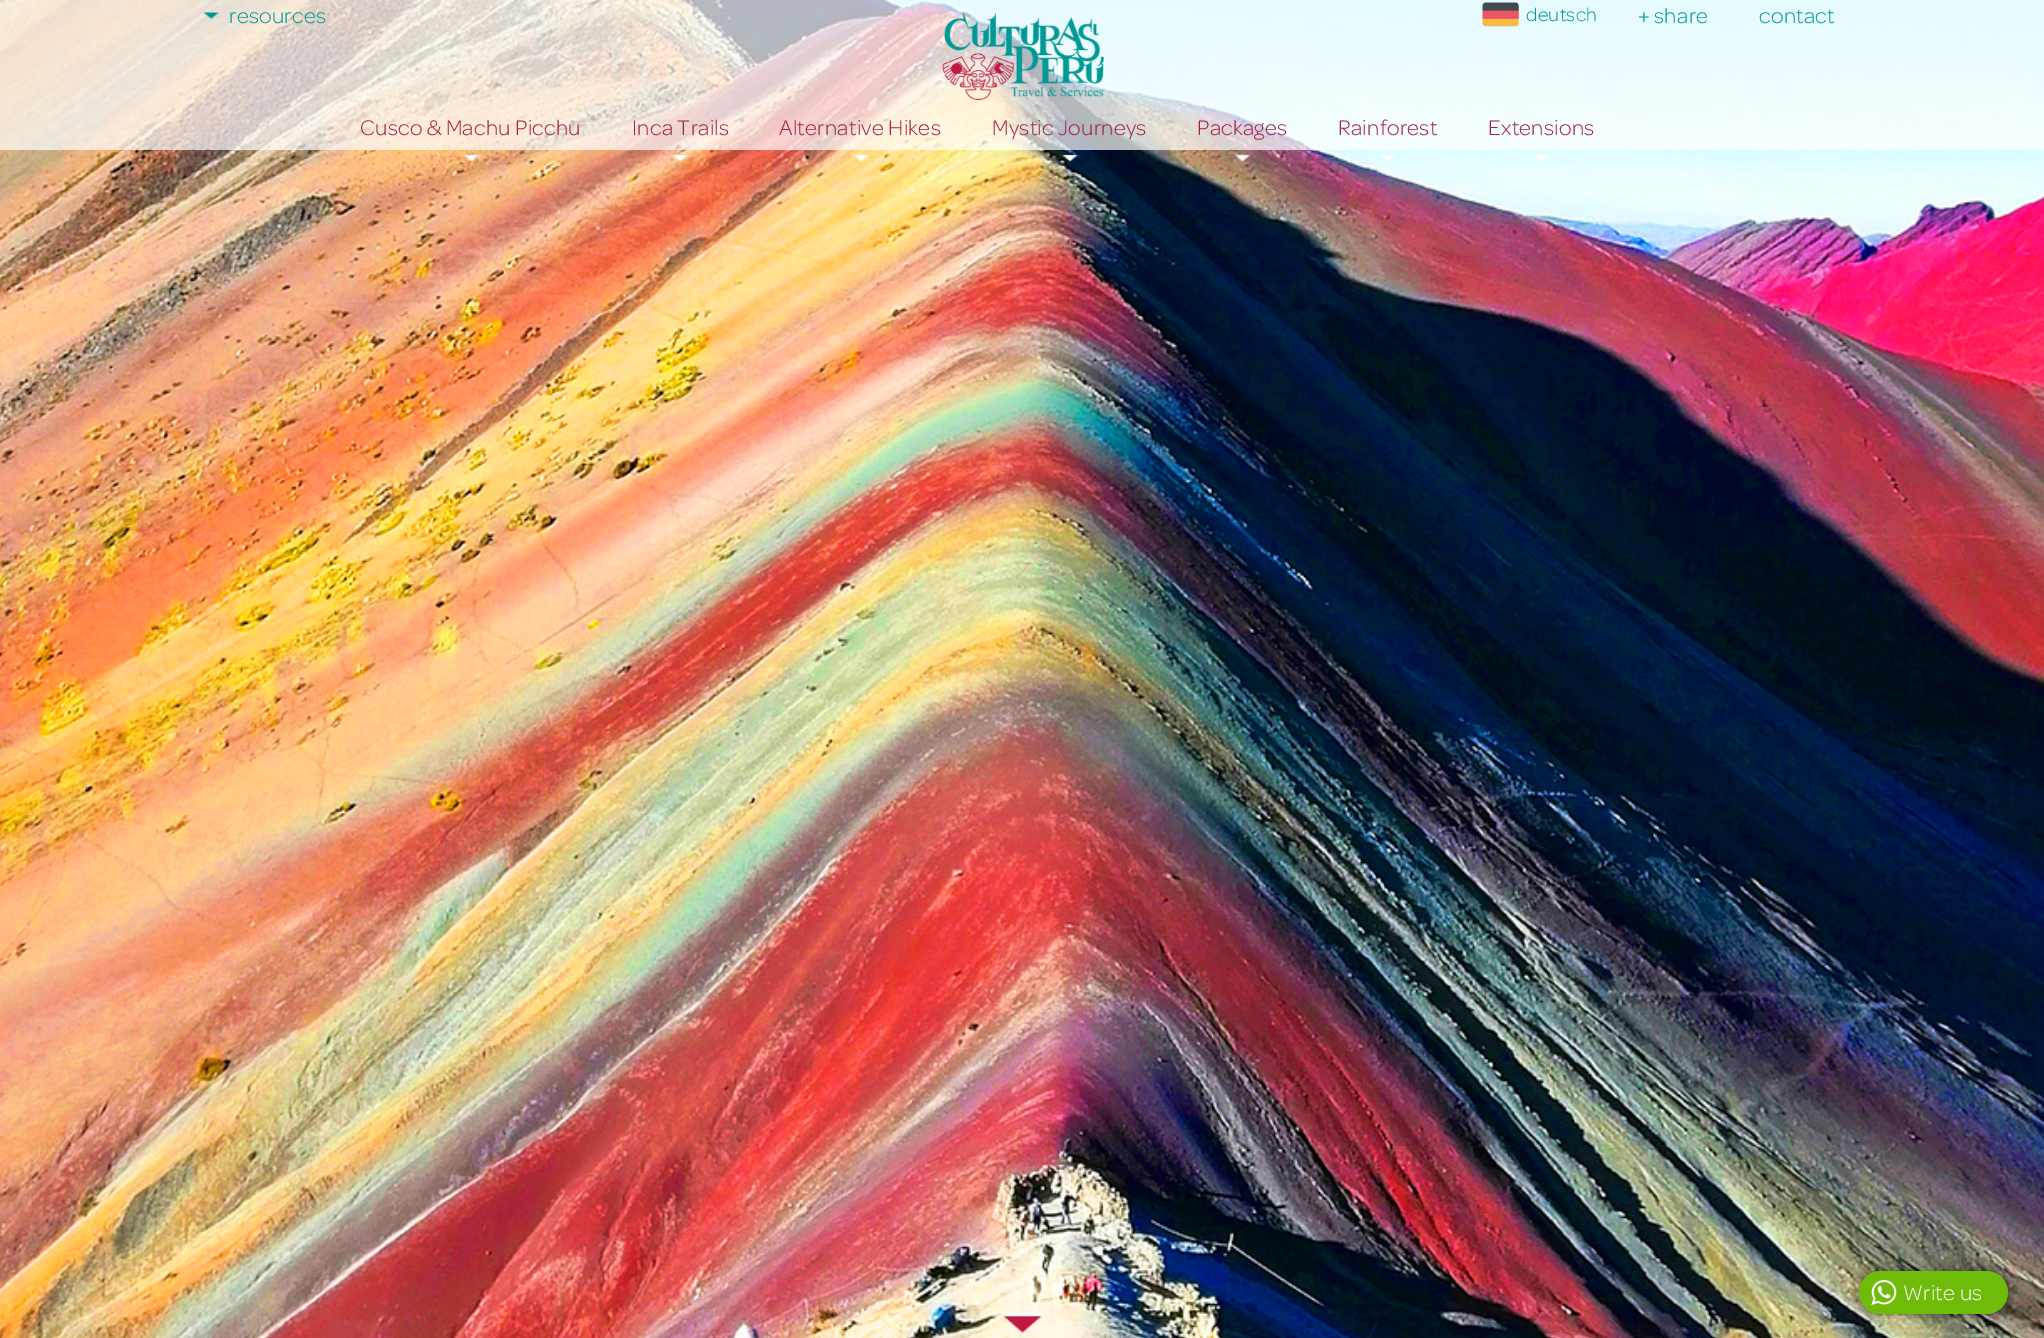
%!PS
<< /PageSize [2044 1338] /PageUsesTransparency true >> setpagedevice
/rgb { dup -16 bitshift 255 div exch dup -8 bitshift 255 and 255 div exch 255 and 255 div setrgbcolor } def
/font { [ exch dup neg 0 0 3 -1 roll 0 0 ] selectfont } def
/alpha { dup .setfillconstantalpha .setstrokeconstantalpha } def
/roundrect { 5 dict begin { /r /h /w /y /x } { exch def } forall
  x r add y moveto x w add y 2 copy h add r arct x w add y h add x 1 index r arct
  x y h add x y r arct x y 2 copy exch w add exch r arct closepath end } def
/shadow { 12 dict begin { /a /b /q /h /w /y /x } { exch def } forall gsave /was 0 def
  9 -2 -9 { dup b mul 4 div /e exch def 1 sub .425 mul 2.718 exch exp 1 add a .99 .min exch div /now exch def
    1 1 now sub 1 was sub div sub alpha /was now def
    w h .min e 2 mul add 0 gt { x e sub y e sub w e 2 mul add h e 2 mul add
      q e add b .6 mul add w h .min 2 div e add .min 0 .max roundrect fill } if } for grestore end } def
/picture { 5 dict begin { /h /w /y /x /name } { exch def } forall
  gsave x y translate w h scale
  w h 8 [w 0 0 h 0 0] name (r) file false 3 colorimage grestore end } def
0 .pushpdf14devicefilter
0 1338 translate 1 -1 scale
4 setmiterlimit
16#FFFFFF rgb
0 0 2044 1338 rectfill
(pic1.raw) 0 0 2044 1338 picture
0.7 alpha
0 0 2044 150 rectfill
1 alpha
(pic2.raw) 203 12 16 7 picture
/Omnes-Light 22.5 font
16#019793 rgb
229 23 moveto 0.3 0 (resources) ashow
(pic3.raw) 942 12 162 88 picture
(pic4.raw) 1482 2 37 25 picture
/Omnes-Light 20 font
1526 21 moveto 0.3 0 (deutsch) ashow
/Omnes-Light 22.5 font
1638 23 moveto 0.3 0 (+ share) ashow
1759 23 moveto 0.3 0 (contact) ashow
(pic5.raw) 463 154 16 7 picture
16#A31F43 rgb
360 135 moveto 0.3 0 (Cusco & Machu Picchu) ashow
(pic6.raw) 672 154 16 8 picture
632 135 moveto 0.3 0 (Inca Trails) ashow
(pic7.raw) 853 154 16 7 picture
779 135 moveto 0.3 0 (Alternative Hikes) ashow
(pic8.raw) 1062 154 16 8 picture
992 135 moveto 0.3 0 (Mystic Journeys) ashow
(pic9.raw) 1234 154 17 8 picture
1197 135 moveto 0.3 0 (Packages) ashow
(pic10.raw) 1380 155 15 6 picture
1338 135 moveto 0.3 0 (Rainforest) ashow
(pic11.raw) 1534 154 15 8 picture
1488 135 moveto 0.3 0 (Extensions) ashow
16#000000 rgb
1859 1271 149 43 21.5 6 0.5 shadow
16#6EBB0A rgb
1859 1271 149 43 21.5 roundrect fill
(pic12.raw) 1871 1280 26 25 picture
16#FFFFFF rgb
1903 1300 moveto 0.3 0 (Write us) ashow
(pic13.raw) 1003 1312 39 21 picture
.poppdf14devicefilter showpage
